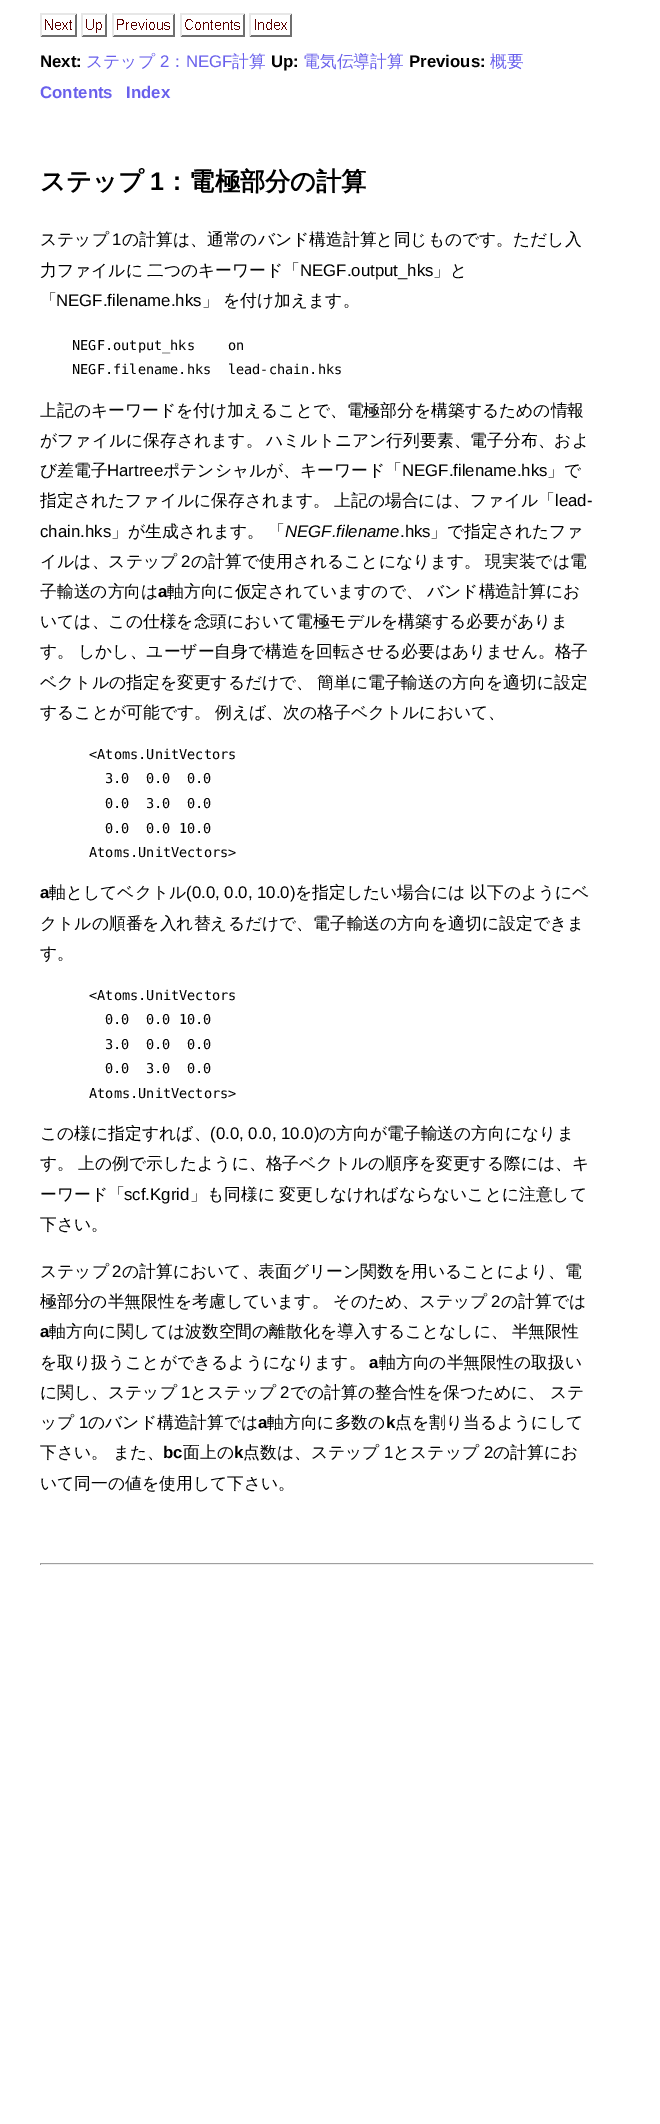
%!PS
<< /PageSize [660 2124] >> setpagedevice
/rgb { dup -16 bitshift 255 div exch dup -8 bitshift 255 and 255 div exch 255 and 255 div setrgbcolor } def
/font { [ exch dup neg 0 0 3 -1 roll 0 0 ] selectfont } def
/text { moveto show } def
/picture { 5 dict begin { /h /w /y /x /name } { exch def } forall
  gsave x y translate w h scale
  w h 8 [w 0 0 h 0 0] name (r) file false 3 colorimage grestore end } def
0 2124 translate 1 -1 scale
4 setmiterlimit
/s1 { /LiberationSans-Bold 16.8 font 16#000000 rgb } def
/s2 { /WenQuanYiZenHei-Medium 16.8 font 16#6960EC rgb } def
/s3 { /LiberationSans-Regular 16.8 font 16#6960EC rgb } def
/s4 { /LiberationSans-Bold 16.8 font 16#6960EC rgb } def
/s5 { /WenQuanYiZenHei-Bold 25.25 font 16#000000 rgb } def
/s6 { /LiberationSans-Bold 25.25 font 16#000000 rgb } def
/s7 { /WenQuanYiZenHei-Medium 16.8 font 16#000000 rgb } def
/s8 { /LiberationSans-Regular 16.8 font 16#000000 rgb } def
/s9 { /DejaVuSansMono-Regular 13.6 font 16#000000 rgb } def
/s10 { /LiberationSans-Italic 16.8 font 16#000000 rgb } def
16#FFFFFF rgb
0 0 660 2124 rectfill
(pic1.raw) 40 13 37 24 picture
(pic2.raw) 81 13 26 24 picture
(pic3.raw) 112 13 63 24 picture
(pic4.raw) 180 13 65 24 picture
(pic5.raw) 249 13 43 24 picture
s1
(Next:) 40 67 text
s2
(ステップ) 86 67 text
s3
(2) 160 67 text
s2
(：) 169 67 text
s3
(NEGF) 186 67 text
s2
(計算) 232 67 text
s1
(Up:) 271 67 text
s2
(電気伝導計算) 303 67 text
s1
(Previous:) 409 67 text
s2
(概要) 490 67 text
s4
(Contents) 40 98 text
(Index) 126 98 text
s5
(ステップ) 40 190 text
s6
(1) 150 190 text
s5
(：電極部分の計算) 164 190 text
s7
(ステップ) 40 245 text
s8
(1) 112 245 text
s7
(の計算は、通常のバンド構造計算と同じものです。ただし入) 122 245 text
(力ファイルに) 40 276 text
(二つのキーワード「) 147 276 text
s8
(NEGF.output_hks) 300 276 text
s7
(」と) 433 276 text
(「) 40 306 text
s8
(NEGF.filename.hks) 56 306 text
s7
(」) 202 306 text
(を付け加えます。) 223 306 text
s9
(NEGF.output_hks    on) 72 350 text
(NEGF.filename.hks  lead-chain.hks) 72 374 text
s7
(上記のキーワードを付け加えることで、電極部分を構築するための情報) 40 416 text
(がファイルに保存されます。) 40 446 text
(ハミルトニアン行列要素、電子分布、およ) 266 446 text
(び差電子) 40 476 text
s8
(Hartree) 107 476 text
s7
(ポテンシャルが、キーワード「) 163 476 text
s8
(NEGF.filename.hks) 402 476 text
s7
(」で) 547 476 text
(指定されたファイルに保存されます。) 40 506 text
(上記の場合には、ファイル「) 334 506 text
s8
(lead-) 555 506 text
(chain.hks) 40 537 text
s7
(」が生成されます。) 111 537 text
(「) 268 537 text
s10
(NEGF.filename) 285 537 text
s8
(.hks) 400 537 text
s7
(」で指定されたファ) 430 537 text
(イルは、ステップ) 40 567 text
s8
(2) 181 567 text
s7
(の計算で使用されることになります。) 191 567 text
(現実装では電) 485 567 text
(子輸送の方向は) 40 597 text
s1
(a) 158 597 text
s7
(軸方向に仮定されていますので、) 167 597 text
(バンド構造計算にお) 427 597 text
(いては、この仕様を念頭において電極モデルを構築する必要がありま) 40 627 text
(す。) 40 657 text
(しかし、ユーザー自身で構造を回転させる必要はありません。格子) 78 657 text
(ベクトルの指定を変更するだけで、) 40 688 text
(簡単に電子輸送の方向を適切に設定) 317 688 text
(することが可能です。) 40 718 text
(例えば、次の格子ベクトルにおいて、) 215 718 text
s9
(<Atoms.UnitVectors) 89 759 text
(3.0  0.0  0.0) 105 783 text
(0.0  3.0  0.0) 105 808 text
(0.0  0.0 10.0) 105 833 text
(Atoms.UnitVectors>) 89 857 text
s1
(a) 40 898 text
s7
(軸としてベクトル) 49 898 text
s8
(\(0.0, 0.0, 10.0\)) 186 898 text
s7
(を指定したい場合には) 295 898 text
(以下のようにベ) 470 898 text
(クトルの順番を入れ替えるだけで、電子輸送の方向を適切に設定できま) 40 929 text
(す。) 40 959 text
s9
(<Atoms.UnitVectors) 89 1000 text
(0.0  0.0 10.0) 105 1024 text
(3.0  0.0  0.0) 105 1049 text
(0.0  3.0  0.0) 105 1073 text
(Atoms.UnitVectors>) 89 1098 text
s7
(この様に指定すれば、) 40 1139 text
s8
(\(0.0, 0.0, 10.0\)) 210 1139 text
s7
(の方向が電子輸送の方向になりま) 319 1139 text
(す。) 40 1169 text
(上の例で示したように、格子ベクトルの順序を変更する際には、キ) 78 1169 text
(ーワード「) 40 1200 text
s8
(scf.Kgrid) 124 1200 text
s7
(」も同様に) 190 1200 text
(変更しなければならないことに注意して) 279 1200 text
(下さい。) 40 1230 text
(ステップ) 40 1277 text
s8
(2) 112 1277 text
s7
(の計算において、表面グリーン関数を用いることにより、電) 122 1277 text
(極部分の半無限性を考慮しています。 そのため、ステップ) 40 1307 text
s8
(2) 491 1307 text
s7
(の計算では) 501 1307 text
s1
(a) 40 1337 text
/WenQuanYiZenHei-Medium 16.8 font
49 1337 moveto -1 0 32 (軸方向に関しては波数空間の離散化を導入することなしに、 半無限性) widthshow
(を取り扱うことができるようになります。) 40 1368 text
s1
(a) 369 1368 text
s7
(軸方向の半無限性の取扱い) 379 1368 text
(に関し、ステップ) 40 1398 text
s8
(1) 181 1398 text
s7
(とステップ) 190 1398 text
s8
(2) 280 1398 text
s7
(での計算の整合性を保つために、 ステ) 290 1398 text
(ップ) 40 1428 text
s8
(1) 79 1428 text
s7
(のバンド構造計算では) 88 1428 text
s1
(a) 258 1428 text
s7
(軸方向に多数の) 267 1428 text
s1
(k) 386 1428 text
s7
(点を割り当るようにして) 395 1428 text
(下さい。 また、) 40 1458 text
s1
(bc) 163 1458 text
s7
(面上の) 183 1458 text
s1
(k) 234 1458 text
s7
(点数は、ステップ) 243 1458 text
s8
(1) 384 1458 text
s7
(とステップ) 393 1458 text
s8
(2) 484 1458 text
s7
(の計算にお) 493 1458 text
(いて同一の値を使用して下さい。) 40 1489 text
16#9F9F9F rgb
40 1563 554 1 rectfill
16#EEEEEE rgb
593 1563 1 2 rectfill
40 1564 554 1 rectfill
16#9F9F9F rgb
40 1563 1 2 rectfill
showpage
